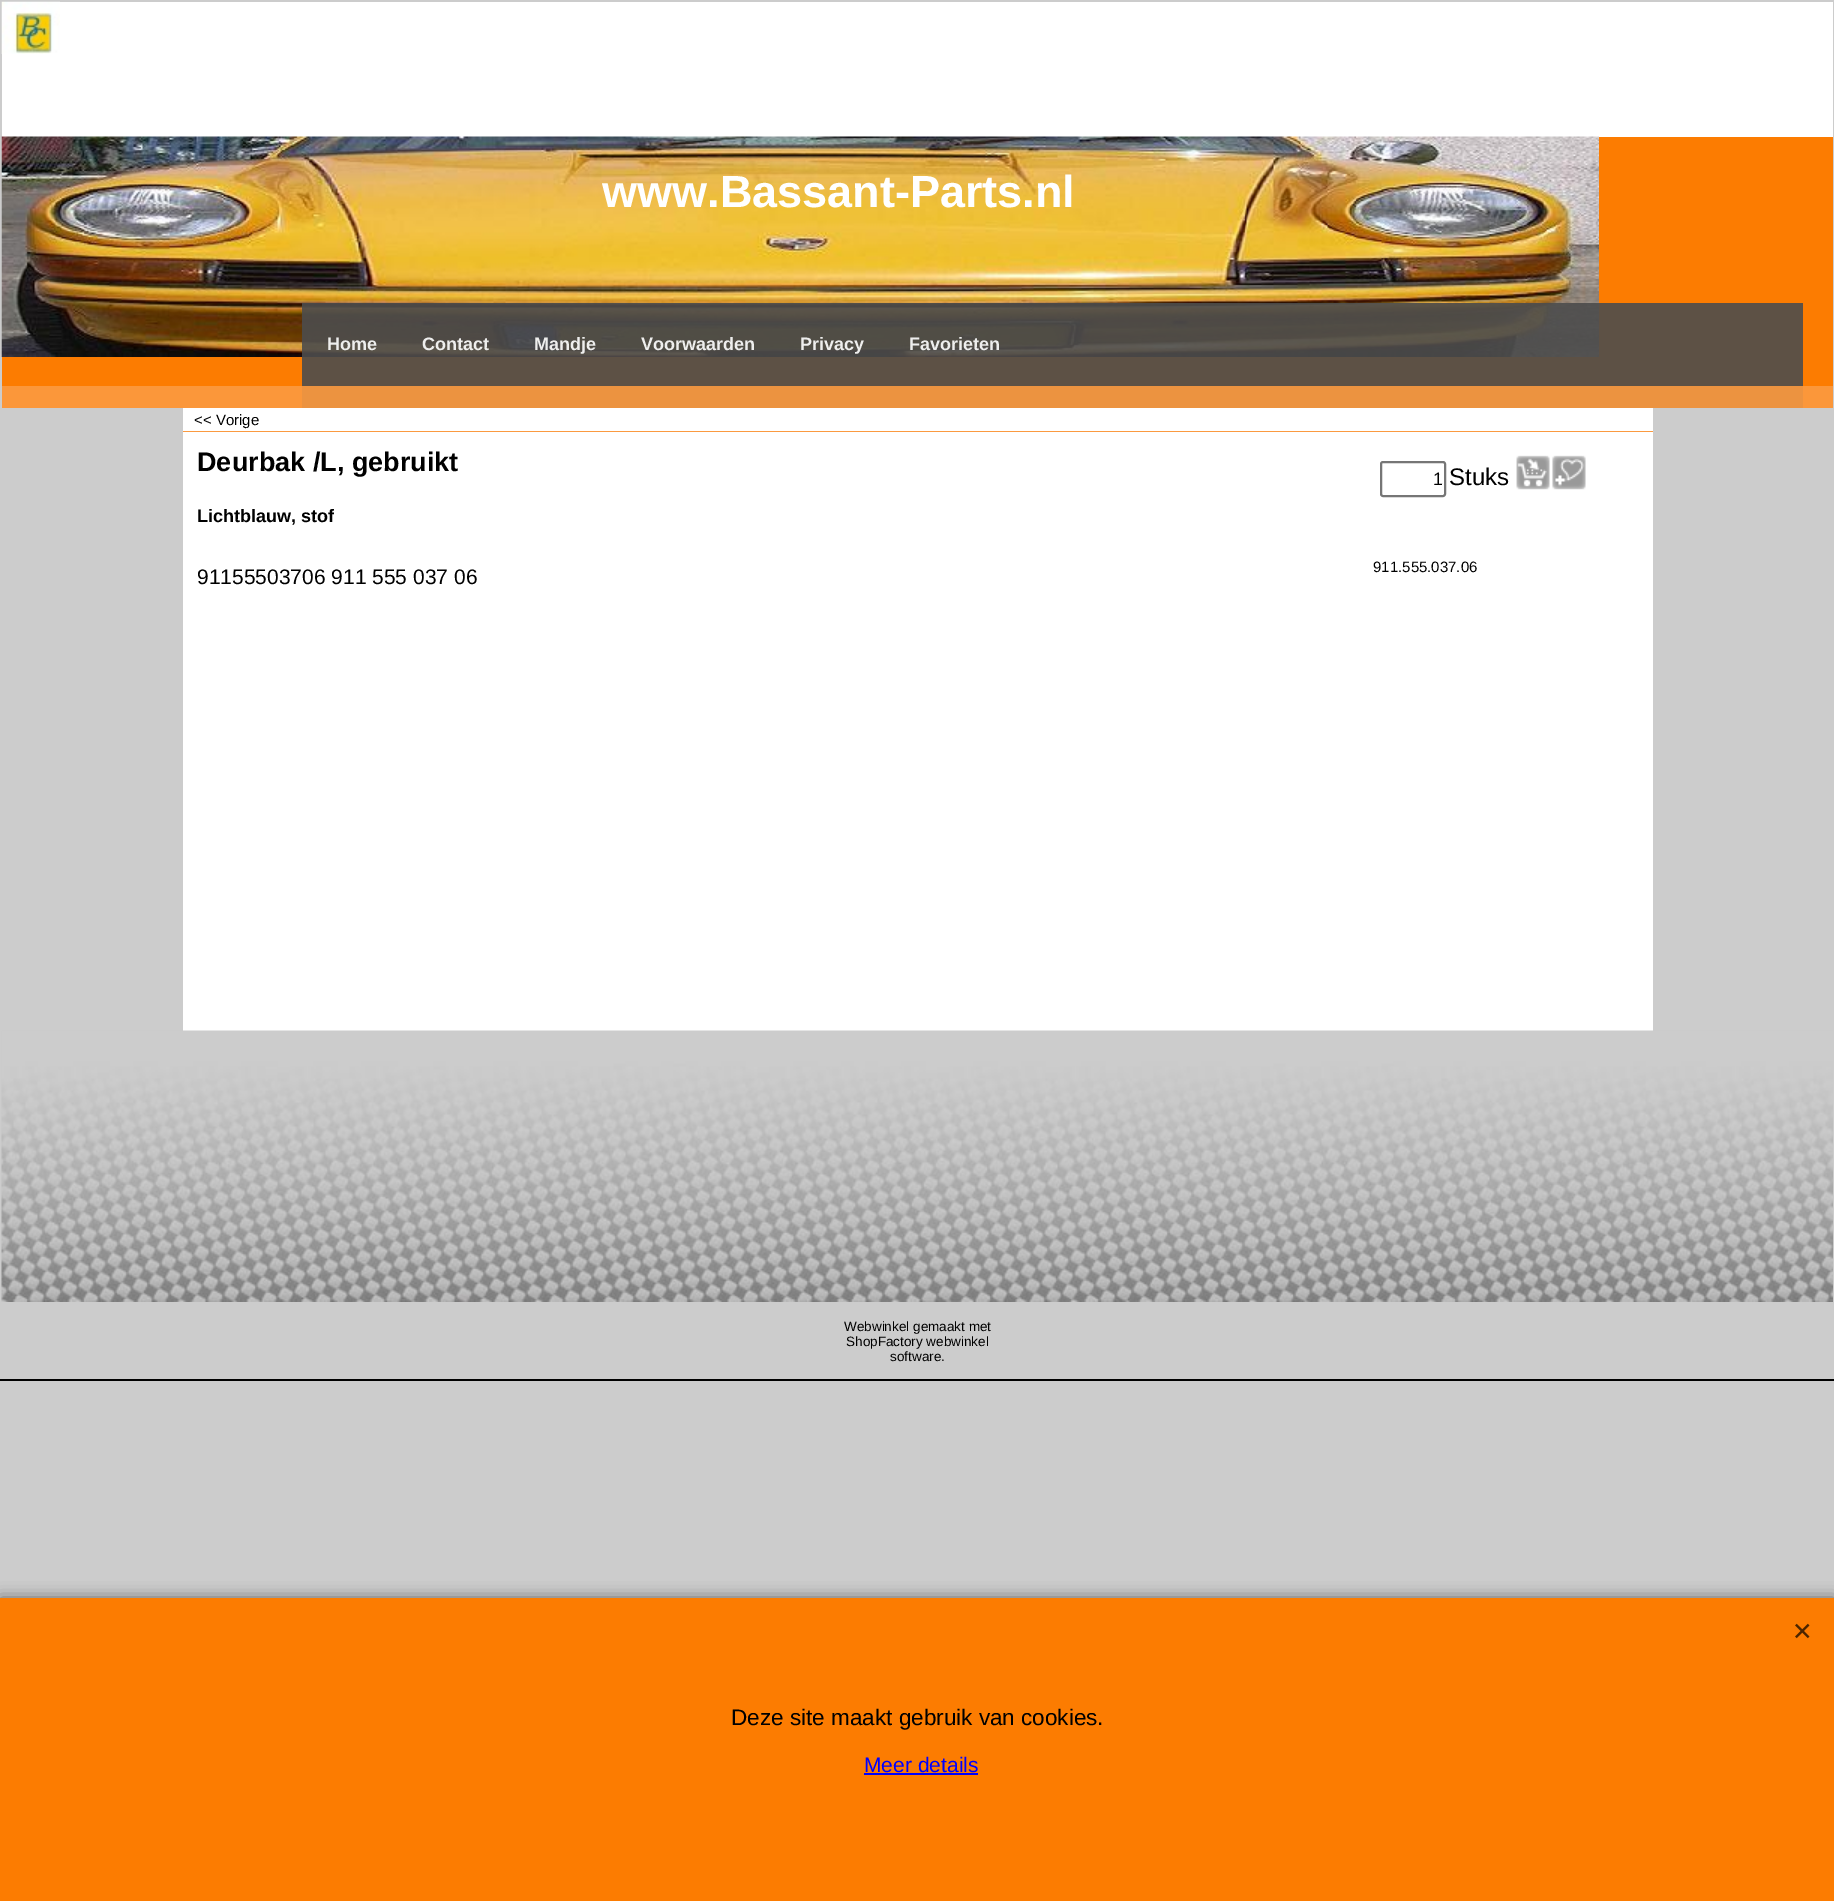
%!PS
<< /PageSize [1834 1901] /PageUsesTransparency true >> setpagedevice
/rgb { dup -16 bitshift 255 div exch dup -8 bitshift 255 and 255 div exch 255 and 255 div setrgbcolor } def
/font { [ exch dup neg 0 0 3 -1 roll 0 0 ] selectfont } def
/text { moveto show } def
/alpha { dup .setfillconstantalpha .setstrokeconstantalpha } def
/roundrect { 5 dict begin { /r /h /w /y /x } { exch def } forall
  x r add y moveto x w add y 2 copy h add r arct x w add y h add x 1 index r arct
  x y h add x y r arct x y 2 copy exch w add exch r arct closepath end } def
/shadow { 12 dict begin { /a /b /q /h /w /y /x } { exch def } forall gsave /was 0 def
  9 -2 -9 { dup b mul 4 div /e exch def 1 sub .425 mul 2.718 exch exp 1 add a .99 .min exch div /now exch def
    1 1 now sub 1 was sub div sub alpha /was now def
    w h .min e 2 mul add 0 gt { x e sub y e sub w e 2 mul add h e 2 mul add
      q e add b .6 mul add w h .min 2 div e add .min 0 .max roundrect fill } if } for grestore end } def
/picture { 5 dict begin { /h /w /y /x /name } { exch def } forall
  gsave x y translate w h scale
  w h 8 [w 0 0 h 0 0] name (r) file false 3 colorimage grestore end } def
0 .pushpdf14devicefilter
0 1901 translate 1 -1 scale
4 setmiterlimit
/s1 { /LiberationSans-Bold 45 font 16#FFFFFF rgb } def
/s2 { /LiberationSans-Bold 18 font 16#EEEEED rgb } def
/s3 { /LiberationSans-Regular 15 font 16#000000 rgb } def
/s4 { /LiberationSans-Bold 27 font 16#000000 rgb } def
/s5 { /LiberationSans-Bold 18 font 16#000000 rgb } def
/s6 { /LiberationSans-Regular 21 font 16#000000 rgb } def
/s7 { /LiberationSans-Regular 18 font 16#000000 rgb } def
/s8 { /LiberationSans-Regular 24 font 16#000000 rgb } def
/s9 { /LiberationSans-Regular 13.5 font 16#000000 rgb } def
/s10 { /LiberationSans-Regular 22.5 font 16#000000 rgb } def
/s11 { /LiberationSans-Regular 21 font 16#0000FF rgb } def
16#CCCCCC rgb
0 0 1834 1901 rectfill
16#FFFFFF rgb
2 2 1831 135 rectfill
(pic1.raw) 1 1 59 53 picture
16#FC7C01 rgb
2 137 1831 271 rectfill
(pic2.raw) 1 136 1598 221 picture
s1
(www.Bassant-Parts.nl) 602 207 text
0.9 alpha
16#4C4C4C rgb
302 303 1501 105 rectfill
1 alpha
s2
(Home) 327 350 text
(Contact) 422 350 text
(Mandje) 534 350 text
(Voorwaarden) 641 350 text
(Privacy) 800 350 text
(Favorieten) 909 350 text
0.9 alpha
16#FB9A40 rgb
2 386 1831 22 rectfill
1 alpha
16#FFFFFF rgb
183 408 1470 623 rectfill
16#FB9A40 rgb
183 431 1470 1 rectfill
s3
(<< Vorige) 194 425 text
s4
(Deurbak /L, gebruikt) 197 471 text
s5
(Lichtblauw, stof) 197 522 text
s6
(91155503706 911 555 037 06) 197 584 text
16#767676 rgb
2 setlinewidth
1381 462 64 34 2 roundrect stroke
s7
(1) 1433 485 text
s8
(Stuks) 1449 485 text
(pic3.raw) 1516 455 34 35 picture
(pic4.raw) 1552 455 34 35 picture
s3
(911.555.037.06) 1373 572 text
(pic5.raw) 1 1030 1832 272 picture
s9
(Webwinkel gemaakt met) 844 1331 text
(ShopFactory webwinkel) 846 1346 text
(software.) 890 1361 text
0 1379 1834 2 rectfill
16#666666 rgb
0 1598 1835 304 0 7.5 1 shadow
16#FC7C01 rgb
0 1598 1834 303 rectfill
(pic6.raw) 1795 1623 15 16 picture
s10
(Deze site maakt gebruik van cookies.) 731 1725 text
s11
(Meer details) 864 1772 text
864 1773 114 2 rectfill
.poppdf14devicefilter showpage
